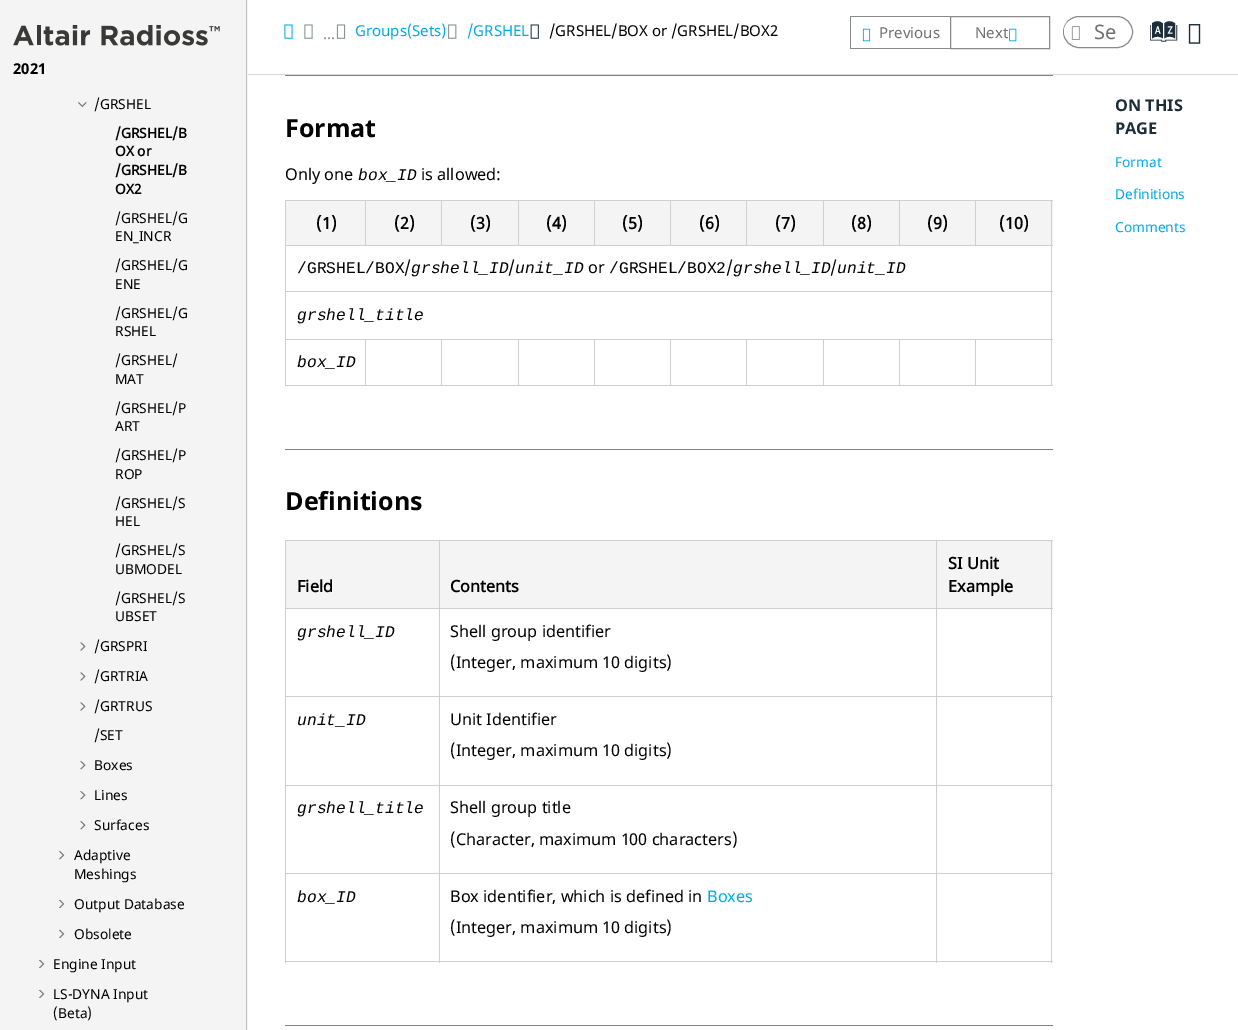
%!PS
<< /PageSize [1238 1030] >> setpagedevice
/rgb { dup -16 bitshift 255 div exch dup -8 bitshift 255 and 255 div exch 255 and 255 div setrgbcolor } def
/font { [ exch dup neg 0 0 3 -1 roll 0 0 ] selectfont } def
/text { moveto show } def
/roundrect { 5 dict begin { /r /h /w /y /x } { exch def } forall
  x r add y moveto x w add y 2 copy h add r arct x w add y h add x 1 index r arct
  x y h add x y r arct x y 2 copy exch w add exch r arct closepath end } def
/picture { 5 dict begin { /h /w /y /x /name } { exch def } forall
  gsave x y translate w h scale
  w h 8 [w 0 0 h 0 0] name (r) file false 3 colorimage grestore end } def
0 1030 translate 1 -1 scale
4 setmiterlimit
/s1 { /NotoSans-Bold 15 font 16#000000 rgb } def
/s2 { /NotoSans-Regular 13.75 font 16#000000 rgb } def
/s3 { /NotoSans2-Bold 13.75 font 16#000000 rgb } def
/s4 { /NotoSans-Regular 15 font 16#85898D rgb } def
/s5 { /NotoSans-Regular 15 font 16#00AAE6 rgb } def
/s6 { /NotoSans-Regular 15 font 16#000000 rgb } def
/s7 { /NotoSans-Regular 15 font 16#707070 rgb } def
/s8 { /NotoSans-Regular 20 font 16#707070 rgb } def
/s9 { /Oxygen-Regular 29 font 16#1D2E38 rgb } def
/s10 { /NotoSans-Bold 25 font 16#000000 rgb } def
/s11 { /NotoSans-Regular 16.25 font 16#000000 rgb } def
/s12 { /LiberationMono-Italic 16.25 font 16#000000 rgb } def
/s13 { /NotoSans2-Bold 16.25 font 16#000000 rgb } def
/s14 { /LiberationMono-Regular 16.25 font 16#000000 rgb } def
/s15 { /NotoSans-Regular 16.25 font 16#00AAE6 rgb } def
/s16 { /NotoSans-Bold 16.25 font 16#1D2E38 rgb } def
/s17 { /NotoSans-Regular 13.75 font 16#00AAE6 rgb } def
16#FFFFFF rgb
0 0 1238 1030 rectfill
16#F4F4F4 rgb
0 0 248 1030 rectfill
16#C0C0C0 rgb
246 0 1 1030 rectfill
(pic1.raw) 13 24 207 22 picture
s1
(2021) 13 74 text
(pic2.raw) 78 101 9 7 picture
s2
(/GRSHEL) 94 109 text
s3
(/GRSHEL/B) 115 138 text
(OX or) 115 156 text
(/GRSHEL/B) 115 175 text
(OX2) 115 194 text
s2
(/GRSHEL/G) 115 223 text
(EN_INCR) 115 241 text
(/GRSHEL/G) 115 270 text
(ENE) 115 289 text
(/GRSHEL/G) 115 318 text
(RSHEL) 115 336 text
(/GRSHEL/) 115 365 text
(MAT) 115 384 text
(/GRSHEL/P) 115 413 text
(ART) 115 431 text
(/GRSHEL/P) 115 460 text
(ROP) 115 479 text
(/GRSHEL/S) 115 508 text
(HEL) 115 526 text
(/GRSHEL/S) 115 555 text
(UBMODEL) 115 574 text
(/GRSHEL/S) 115 603 text
(UBSET) 115 621 text
(pic3.raw) 80 642 6 9 picture
(/GRSPRI) 94 651 text
(pic3.raw) 80 672 6 9 picture
(/GRTRIA) 94 681 text
(pic3.raw) 80 702 6 9 picture
(/GRTRUS) 94 711 text
(/SET) 94 740 text
(pic4.raw) 80 761 6 9 picture
(Boxes) 94 770 text
(pic4.raw) 80 791 6 9 picture
(Lines) 94 800 text
(pic4.raw) 80 821 6 9 picture
(Surfaces) 94 830 text
(pic5.raw) 58 851 7 9 picture
(Adaptive) 74 860 text
(Meshings) 74 879 text
(pic6.raw) 58 899 7 9 picture
(Output Database) 74 909 text
(pic6.raw) 58 929 7 9 picture
(Obsolete) 74 939 text
(pic6.raw) 38 959 7 9 picture
(Engine Input) 53 969 text
(pic6.raw) 38 989 7 9 picture
(LS-DYNA Input) 53 999 text
(\(Beta\)) 53 1018 text
16#D8D8D8 rgb
248 74 990 1 rectfill
(pic7.raw) 284 24 9 15 picture
(pic8.raw) 304 24 9 15 picture
s4
(...) 323 39 text
(pic9.raw) 336 24 10 15 picture
s5
(Groups\(Sets\)) 355 36 text
(pic10.raw) 448 24 9 15 picture
(/GRSHEL) 467 36 text
(pic11.raw) 530 24 9 15 picture
s6
(/GRSHEL/BOX or /GRSHEL/BOX2) 549 36 text
16#8B8B8B rgb
850 16 100 1 rectfill
850 48 100 1 rectfill
850 16 1 33 rectfill
(pic12.raw) 862 28 9 14 picture
s7
(Previous) 879 38 text
16#8B8B8B rgb
950.5 16.5 99 32 rectstroke
s7
(Next) 975 38 text
(pic13.raw) 1009 28 8 14 picture
16#8B8B8B rgb
1063.5 16.5 69 31 15.5 roundrect stroke
16#FFFFFF rgb
1064 19 25 24 12 roundrect fill
(pic14.raw) 1071 26 9 14 picture
s8
(Se) 1094 39 text
s9
(a) 1153 45 text
(pic15.raw) 1188 24 13 20 picture
16#828282 rgb
285 75 768 1 rectfill
s10
(Format) 285 137 text
s11
(Only one) 285 180 text
s12
(box_ID) 358 180 text
s11
(is allowed:) 421 180 text
16#CFCFCF rgb
285 200 768 1 rectfill
16#F4F4F4 rgb
976 201 77 44 rectfill
16#CFCFCF rgb
1051 200 1 186 rectfill
285 385 768 1 rectfill
285 200 1 186 rectfill
16#F4F4F4 rgb
286 201 79 44 rectfill
s13
(\(1\)) 316 229 text
16#F4F4F4 rgb
366 201 152 44 rectfill
16#CFCFCF rgb
285 245 768 1 rectfill
365 200 1 46 rectfill
s13
(\(2\)) 394 229 text
16#CFCFCF rgb
441 200 1 46 rectfill
s13
(\(3\)) 470 229 text
16#F4F4F4 rgb
519 201 75 44 rectfill
16#CFCFCF rgb
518 200 1 46 rectfill
s13
(\(4\)) 546 229 text
16#F4F4F4 rgb
595 201 75 44 rectfill
16#CFCFCF rgb
594 200 1 46 rectfill
s13
(\(5\)) 622 229 text
16#F4F4F4 rgb
671 201 152 44 rectfill
16#CFCFCF rgb
670 200 1 46 rectfill
s13
(\(6\)) 699 229 text
16#CFCFCF rgb
746 200 1 46 rectfill
s13
(\(7\)) 775 229 text
16#F4F4F4 rgb
824 201 75 44 rectfill
16#CFCFCF rgb
823 200 1 46 rectfill
s13
(\(8\)) 851 229 text
16#F4F4F4 rgb
900 201 75 44 rectfill
16#CFCFCF rgb
899 200 1 46 rectfill
s13
(\(9\)) 927 229 text
16#CFCFCF rgb
975 200 1 46 rectfill
s13
(\(10\)) 999 229 text
s14
(/GRSHEL/BOX) 297 273 text
s11
(/) 404 273 text
s12
(grshell_ID) 411 273 text
s11
(/) 508 273 text
s12
(unit_ID) 515 273 text
s11
(or) 588 273 text
s14
(/GRSHEL/BOX2) 609 273 text
s11
(/) 726 273 text
s12
(grshell_ID) 733 273 text
s11
(/) 830 273 text
s12
(unit_ID) 837 273 text
16#CFCFCF rgb
285 291 768 1 rectfill
s12
(grshell_title) 297 320 text
16#CFCFCF rgb
975 339 78 1 rectfill
975 339 1 47 rectfill
899 339 77 1 rectfill
899 339 1 47 rectfill
823 339 77 1 rectfill
823 339 1 47 rectfill
746 339 78 1 rectfill
746 339 1 47 rectfill
670 339 78 1 rectfill
670 339 1 47 rectfill
594 339 77 1 rectfill
594 339 1 47 rectfill
518 339 77 1 rectfill
518 339 1 47 rectfill
441 339 78 1 rectfill
441 339 1 47 rectfill
365 339 78 1 rectfill
365 339 1 47 rectfill
285 339 81 1 rectfill
s12
(box_ID) 297 367 text
16#828282 rgb
285 449 768 1 rectfill
s10
(Definitions) 285 510 text
16#CFCFCF rgb
285 540 768 1 rectfill
16#F4F4F4 rgb
440 541 613 67 rectfill
16#CFCFCF rgb
1051 540 1 423 rectfill
285 961 768 1 rectfill
285 540 1 423 rectfill
16#F4F4F4 rgb
286 541 153 67 rectfill
s13
(Field) 297 592 text
16#CFCFCF rgb
936 608 117 1 rectfill
936 696 117 1 rectfill
936 785 117 1 rectfill
936 873 117 1 rectfill
936 873 1 90 rectfill
439 873 499 1 rectfill
936 785 1 89 rectfill
439 785 499 1 rectfill
936 696 1 90 rectfill
439 696 499 1 rectfill
936 608 1 90 rectfill
439 608 499 1 rectfill
439 873 1 90 rectfill
285 873 155 1 rectfill
439 785 1 89 rectfill
285 785 155 1 rectfill
439 696 1 90 rectfill
285 696 155 1 rectfill
439 608 1 90 rectfill
285 608 155 1 rectfill
439 540 1 69 rectfill
s13
(Contents) 450 592 text
16#CFCFCF rgb
936 540 1 69 rectfill
s13
(SI Unit) 948 569 text
(Example) 948 592 text
s12
(grshell_ID) 297 637 text
s11
(Shell group identifier) 450 637 text
(\(Integer, maximum 10 digits\)) 450 668 text
s12
(unit_ID) 297 725 text
s11
(Unit Identifier) 450 725 text
(\(Integer, maximum 10 digits\)) 450 756 text
s12
(grshell_title) 297 813 text
s11
(Shell group title) 450 813 text
(\(Character, maximum 100 characters\)) 450 845 text
s12
(box_ID) 297 902 text
s11
(Box identifier, which is defined in) 450 902 text
s15
(Boxes) 707 902 text
s11
(\(Integer, maximum 10 digits\)) 450 933 text
16#828282 rgb
285 1025 768 1 rectfill
s16
(ON THIS) 1115 111 text
(PAGE) 1115 134 text
s17
(Format) 1115 167 text
(Definitions) 1115 199 text
(Comments) 1115 232 text
showpage
